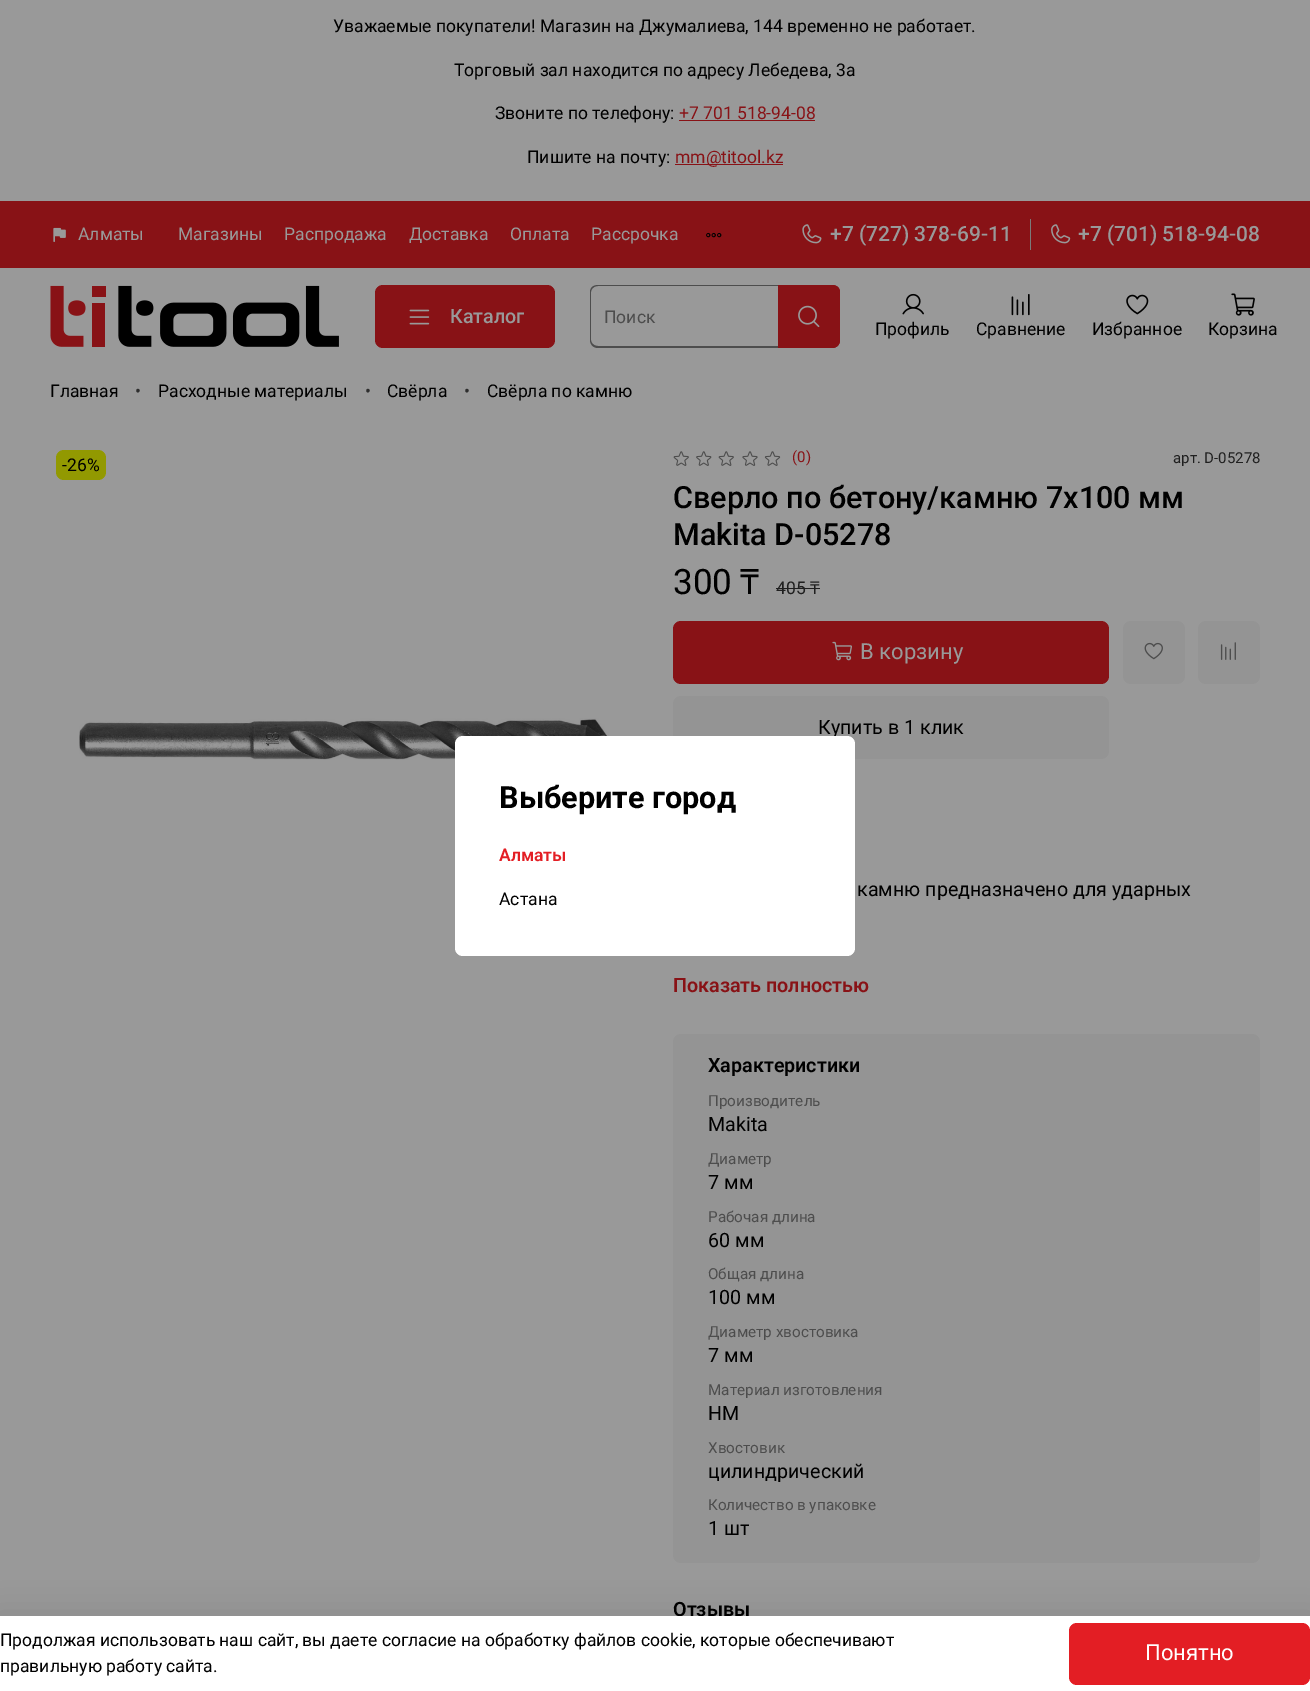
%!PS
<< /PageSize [1310 1691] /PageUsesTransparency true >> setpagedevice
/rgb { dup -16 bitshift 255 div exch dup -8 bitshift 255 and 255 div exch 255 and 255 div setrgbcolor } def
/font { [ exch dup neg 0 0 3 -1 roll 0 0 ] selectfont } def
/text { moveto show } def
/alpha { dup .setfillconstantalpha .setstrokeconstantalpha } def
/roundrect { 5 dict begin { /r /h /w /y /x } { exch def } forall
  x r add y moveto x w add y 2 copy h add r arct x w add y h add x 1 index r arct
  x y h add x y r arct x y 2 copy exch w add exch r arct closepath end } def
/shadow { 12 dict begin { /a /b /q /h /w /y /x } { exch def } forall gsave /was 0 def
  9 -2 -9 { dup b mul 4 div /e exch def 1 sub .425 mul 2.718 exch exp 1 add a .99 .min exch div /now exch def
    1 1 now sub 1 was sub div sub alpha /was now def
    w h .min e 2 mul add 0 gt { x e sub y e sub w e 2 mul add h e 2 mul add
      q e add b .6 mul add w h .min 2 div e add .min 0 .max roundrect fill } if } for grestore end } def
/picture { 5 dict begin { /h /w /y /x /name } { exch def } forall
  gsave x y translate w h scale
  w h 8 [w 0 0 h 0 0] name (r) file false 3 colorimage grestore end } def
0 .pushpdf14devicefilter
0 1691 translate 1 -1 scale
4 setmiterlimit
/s1 { /Roboto-Regular 17.5 font 16#000000 rgb } def
/s2 { /Roboto-Regular 17.5 font 16#881216 rgb } def
/s3 { /Roboto-Regular 17.5 font 16#999999 rgb } def
/s4 { /Roboto-Medium 21 font 16#999999 rgb } def
/s5 { /Roboto-Medium 19.7 font 16#999999 rgb } def
/s6 { /Roboto-Regular 17.5 font 16#4D4D4D rgb } def
/s7 { /Roboto-Regular 19.7 font 16#000000 rgb } def
/s8 { /Roboto-Bold 30.6 font 16#000000 rgb } def
/s9 { /Roboto-SemiBold 17.5 font 16#E31E24 rgb } def
/s10 { /Roboto-Regular 17.5 font 16#2E2E2E rgb } def
/s11 { /Roboto-Regular 15 font 16#881216 rgb } def
/s12 { /Roboto-Regular 15 font 16#1F1F1F rgb } def
/s13 { /Roboto-Medium 30.6 font 16#000000 rgb } def
/s14 { /Roboto-Regular 35 font 16#000000 rgb } def
/s15 { /NotoSans-Regular 35 font 16#000000 rgb } def
/s16 { /Roboto-Regular 17.5 font 16#1F1F1F rgb } def
/s17 { /NotoSans-Regular 17.5 font 16#1F1F1F rgb } def
/s18 { /Roboto-Regular 22 font 16#999999 rgb } def
/s19 { /Roboto-SemiBold 19.7 font 16#881216 rgb } def
/s20 { /Roboto-SemiBold 19.7 font 16#000000 rgb } def
/s21 { /Roboto-Regular 15.25 font 16#4D4D4D rgb } def
/s22 { /Roboto-Regular 22 font 16#FFFFFF rgb } def
16#999999 rgb
0 0 1310 1691 rectfill
s1
(Уважаемые покупатели! Магазин на Джумалиева, 144 временно не работает.) 333 32 text
(Торговый зал находится по адресу Лебедева, 3а) 454 76 text
(Звоните по телефону:) 495 119 text
s2
(+7 701 518-94-08) 679 119 text
679 120 136 1 rectfill
s1
(Пишите на почту:) 527 163 text
16#881216 rgb
675 164 108 1 rectfill
(mm@titool.kz) 675 163 text
0 201 1310 67 rectfill
(pic1.raw) 53 227 13 15 picture
s3
(Алматы) 78 240 text
(Магазины) 178 240 text
(Распродажа) 284 240 text
(Доставка) 409 240 text
(Оплата) 510 240 text
(Рассрочка) 591 240 text
(pic2.raw) 706 232 16 6 picture
16#7A7A7A rgb
1030 219 1 31 rectfill
(pic3.raw) 802 224 20 20 picture
s4
(+7 \(727\) 378-69-11) 830 241 text
(pic4.raw) 1051 224 20 20 picture
(+7 \(701\) 518-94-08) 1078 241 text
(pic5.raw) 50 285 289 62 picture
16#881216 rgb
375 285 180 63 8 roundrect fill
(pic6.raw) 409 309 21 16 picture
s5
(Каталог) 450 323 text
16#4D4D4D rgb
598 285 moveto 778 285 lineto 778 348 lineto 598 348 lineto 593 348 590 344 590 340 curveto 590 292 lineto 590 288 593 285 598 285 curveto closepath 598 286 moveto 778 286 lineto 778 346 lineto 598 346 lineto 594 346 591 343 591 340 curveto 591 292 lineto 591 289 594 286 598 286 curveto closepath eofill
s6
(Поиск) 604 323 text
16#881216 rgb
778 285 moveto 832 285 lineto 836.5 285 840 288.5 840 293 curveto 840 340 lineto 840 344.5 836.5 348 832 348 curveto 778 348 lineto closepath fill
778 285 moveto 832 285 lineto 837 285 840 288 840 292 curveto 840 340 lineto 840 344 837 348 832 348 curveto 778 348 lineto closepath 778 286 moveto 832 286 lineto 836 286 839 289 839 292 curveto 839 340 lineto 839 343 836 346 832 346 curveto 778 346 lineto closepath eofill
(pic7.raw) 798 305 22 23 picture
(pic8.raw) 902 293 22 22 picture
s1
(Профиль) 875 335 text
(pic9.raw) 1011 294 19 22 picture
(Сравнение) 976 335 text
(pic10.raw) 1126 294 23 21 picture
(Избранное) 1092 335 text
(pic11.raw) 1231 293 24 23 picture
(Корзина) 1208 335 text
(pic12.raw) 79 718 530 42 picture
16#949494 rgb
673 696 436 63 8 roundrect fill
s7
(Купить в 1 клик) 818 734 text
16#FFFFFF rgb
455 736 400 220 8 roundrect fill
s8
(Выберите город) 499 808 text
s9
(Алматы) 499 861 text
s1
(Астана) 499 905 text
(Главная) 50 397 text
s10
(•) 135 397 text
s1
(Расходные материалы) 158 397 text
s10
(•) 365 397 text
s1
(Свёрла) 387 397 text
s10
(•) 464 397 text
s1
(Свёрла по камню) 487 397 text
16#929901 rgb
56 450 50 30 8 roundrect fill
s1
(-26%) 62 471 text
(pic13.raw) 673 451 16 15 picture
(pic14.raw) 696 451 16 15 picture
(pic13.raw) 718 451 16 15 picture
(pic15.raw) 742 451 16 15 picture
(pic16.raw) 764 451 17 15 picture
s11
(\(0\)) 792 462 text
s12
(арт. D-05278) 1173 463 text
s13
(Сверло по бетону/камню 7х100 мм) 673 508 text
(Makita D-05278) 673 545 text
s14
(300) 673 594 text
s15
(₸) 740 594 text
s16
(405) 776 594 text
776 588 44 1 rectfill
s17
(₸) 810 594 text
16#881216 rgb
673 621 436 63 8 roundrect fill
(pic17.raw) 832 641 20 20 picture
s18
(В корзину) 860 659 text
16#949494 rgb
1123 621 62 63 8 roundrect fill
(pic18.raw) 1144 642 19 18 picture
1198 621 62 63 8 roundrect fill
(pic19.raw) 1220 642 16 18 picture
s7
(камню предназначено для ударных) 857 896 text
s19
(Показать полностью) 673 992 text
16#949494 rgb
673 1034 587 529 8 roundrect fill
s20
(Характеристики) 708 1072 text
s21
(Производитель) 708 1106 text
s7
(Makita) 708 1131 text
s21
(Диаметр) 708 1164 text
s7
(7 мм) 708 1189 text
s21
(Рабочая длина) 708 1222 text
s7
(60 мм) 708 1247 text
s21
(Общая длина) 708 1279 text
s7
(100 мм) 708 1304 text
s21
(Диаметр хвостовика) 708 1337 text
s7
(7 мм) 708 1362 text
s21
(Материал изготовления) 708 1395 text
s7
(HM) 708 1420 text
s21
(Хвостовик) 708 1453 text
s7
(цилиндрический) 708 1478 text
s21
(Количество в упаковке) 708 1510 text
s7
(1 шт) 708 1535 text
s20
(Отзывы) 673 1616 text
-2 1613 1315 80 0 14.5 0.09 shadow
16#FFFFFF rgb
0 1616 1310 75 rectfill
s1
(Продолжая использовать наш сайт, вы даете согласие на обработку файлов cookie, которые обеспечивают) 0 1646 text
(правильную работу сайта.) 0 1672 text
16#E31E24 rgb
1069 1623 241 62 8 roundrect fill
s22
(Понятно) 1145 1660 text
.poppdf14devicefilter showpage
